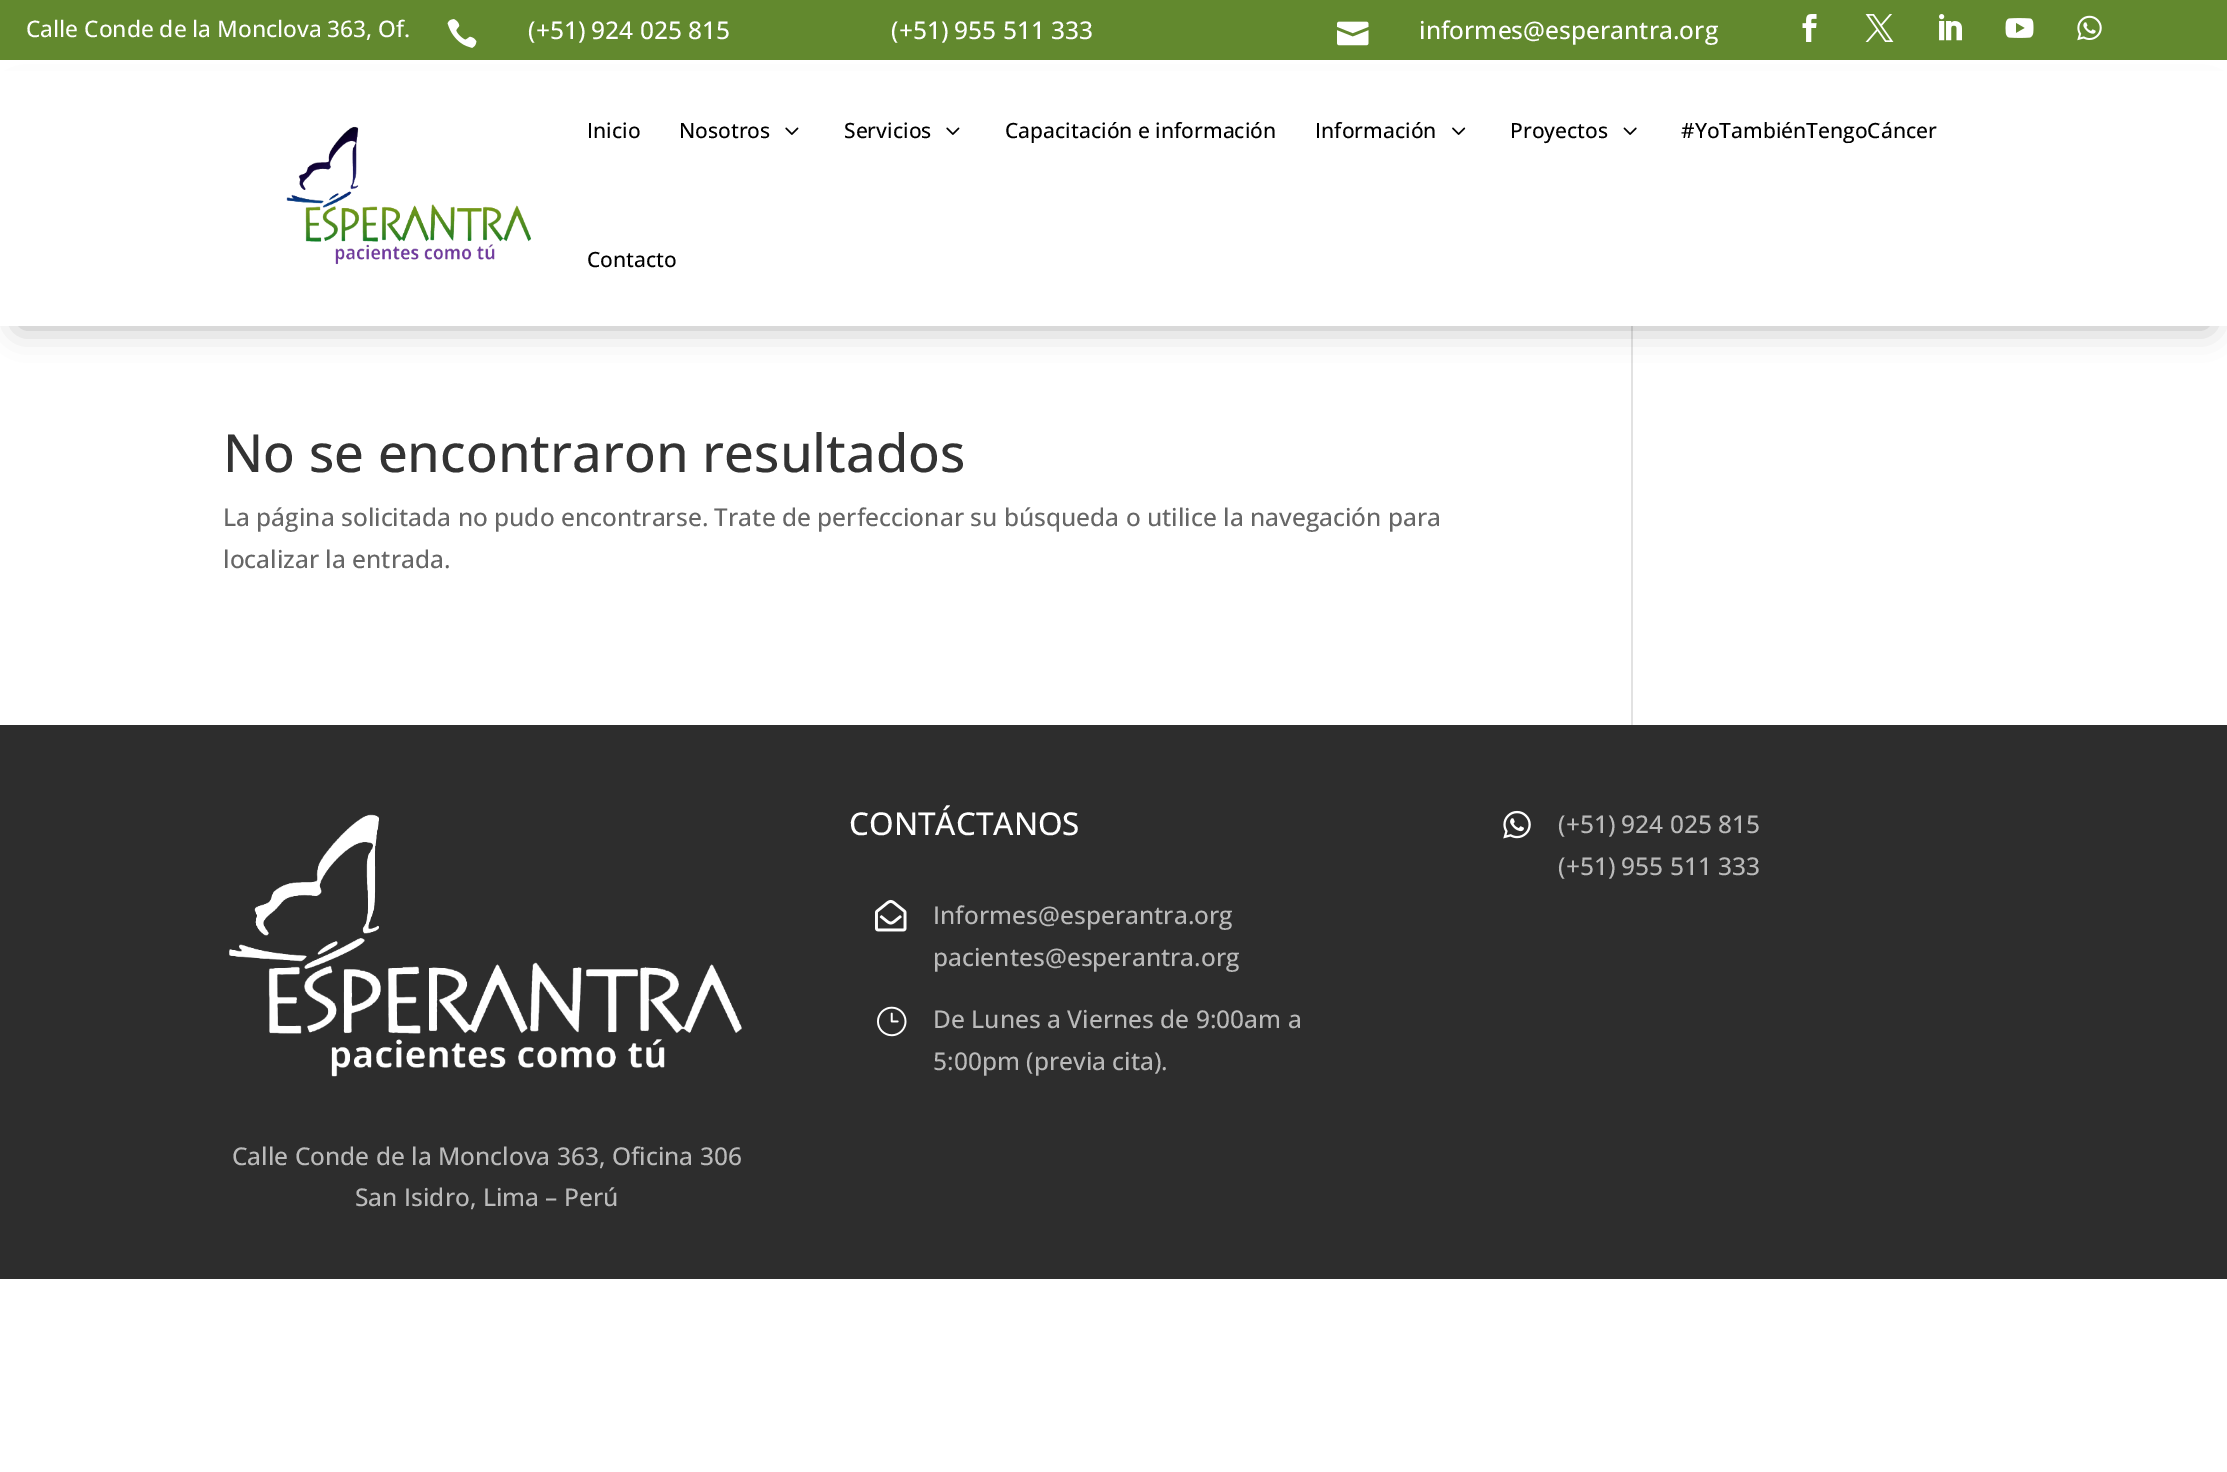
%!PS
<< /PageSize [2227 1472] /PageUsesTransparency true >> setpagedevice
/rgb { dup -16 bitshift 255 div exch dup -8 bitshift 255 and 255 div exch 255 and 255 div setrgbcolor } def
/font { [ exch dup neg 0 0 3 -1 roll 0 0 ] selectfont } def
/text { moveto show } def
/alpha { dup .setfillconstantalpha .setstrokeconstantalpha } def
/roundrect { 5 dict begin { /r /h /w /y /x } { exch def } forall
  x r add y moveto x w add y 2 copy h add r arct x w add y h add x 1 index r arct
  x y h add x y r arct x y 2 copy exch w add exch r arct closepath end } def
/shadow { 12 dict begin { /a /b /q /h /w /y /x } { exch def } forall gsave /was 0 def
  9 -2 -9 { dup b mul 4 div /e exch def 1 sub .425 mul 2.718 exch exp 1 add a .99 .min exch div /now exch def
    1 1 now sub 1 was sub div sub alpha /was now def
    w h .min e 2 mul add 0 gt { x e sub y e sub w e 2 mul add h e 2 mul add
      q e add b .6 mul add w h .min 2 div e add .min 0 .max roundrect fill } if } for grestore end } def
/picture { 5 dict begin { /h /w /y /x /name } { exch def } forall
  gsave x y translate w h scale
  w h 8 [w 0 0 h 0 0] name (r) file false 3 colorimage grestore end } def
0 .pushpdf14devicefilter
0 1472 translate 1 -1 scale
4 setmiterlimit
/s1 { /OpenSans-Medium 22.75 font 16#FFFFFF rgb } def
/s2 { /OpenSans-Medium 24.5 font 16#FFFFFF rgb } def
/s3 { /OpenSans-Medium 21 font 16#000000 rgb } def
/s4 { /OpenSans-Medium 52.5 font 16#333333 rgb } def
/s5 { /OpenSans-Medium 24.5 font 16#666666 rgb } def
/s6 { /OpenSans-Medium 31.5 font 16#FFFFFF rgb } def
/s7 { /OpenSans-Medium 24.5 font 16#BABABA rgb } def
16#FFFFFF rgb
0 0 2227 1472 rectfill
16#62892E rgb
0 0 2227 60 rectfill
s1
(Calle Conde de la Monclova 363, Of.) 26 37 text
(pic1.raw) 447 19 30 29 picture
s2
(\(+51\) 924 025 815) 528 39 text
(\(+51\) 955 511 333) 891 39 text
(pic2.raw) 1337 21 32 25 picture
(informes@esperantra.org) 1419 39 text
(pic3.raw) 1802 14 15 28 picture
(pic4.raw) 1865 14 29 28 picture
(pic5.raw) 1939 14 23 27 picture
(pic6.raw) 2005 18 29 20 picture
(pic7.raw) 2077 15 25 26 picture
16#E2E2E2 rgb
1631 326 2 399 rectfill
16#000000 rgb
19 100 2190 227 0 16 0.3 shadow
16#FFFFFF rgb
0 71 2227 255 rectfill
(pic8.raw) 286 126 246 139 picture
s3
(Inicio) 587 138 text
(Nosotros) 679 138 text
(pic9.raw) 785 127 14 8 picture
(Servicios) 844 138 text
(pic9.raw) 946 127 14 8 picture
(Capacitación e información) 1005 138 text
(Información) 1315 138 text
(pic10.raw) 1452 127 14 8 picture
(Proyectos) 1510 138 text
(pic11.raw) 1623 127 14 8 picture
(#YoTambiénTengoCáncer) 1681 138 text
(Contacto) 587 267 text
s4
(No se encontraron resultados) 223 472 text
s5
(La página solicitada no pudo encontrarse. Trate de perfeccionar su búsqueda o utilice la navegación para) 223 526 text
(localizar la entrada.) 223 568 text
16#2D2D2D rgb
0 725 2227 554 rectfill
s6
(CONTÁCTANOS) 849 835 text
(pic12.raw) 875 899 32 33 picture
s7
(Informes@esperantra.org) 933 924 text
(pacientes@esperantra.org) 933 966 text
(pic13.raw) 877 1006 30 31 picture
(De Lunes a Viernes de 9:00am a) 933 1028 text
(5:00pm \(previa cita\).) 933 1070 text
(pic14.raw) 1503 810 28 29 picture
(\(+51\) 924 025 815) 1558 833 text
(\(+51\) 955 511 333) 1558 875 text
(pic15.raw) 229 814 513 263 picture
(Calle Conde de la Monclova 363, Oficina 306) 232 1165 text
(San Isidro, Lima – Perú) 355 1206 text
.poppdf14devicefilter showpage
